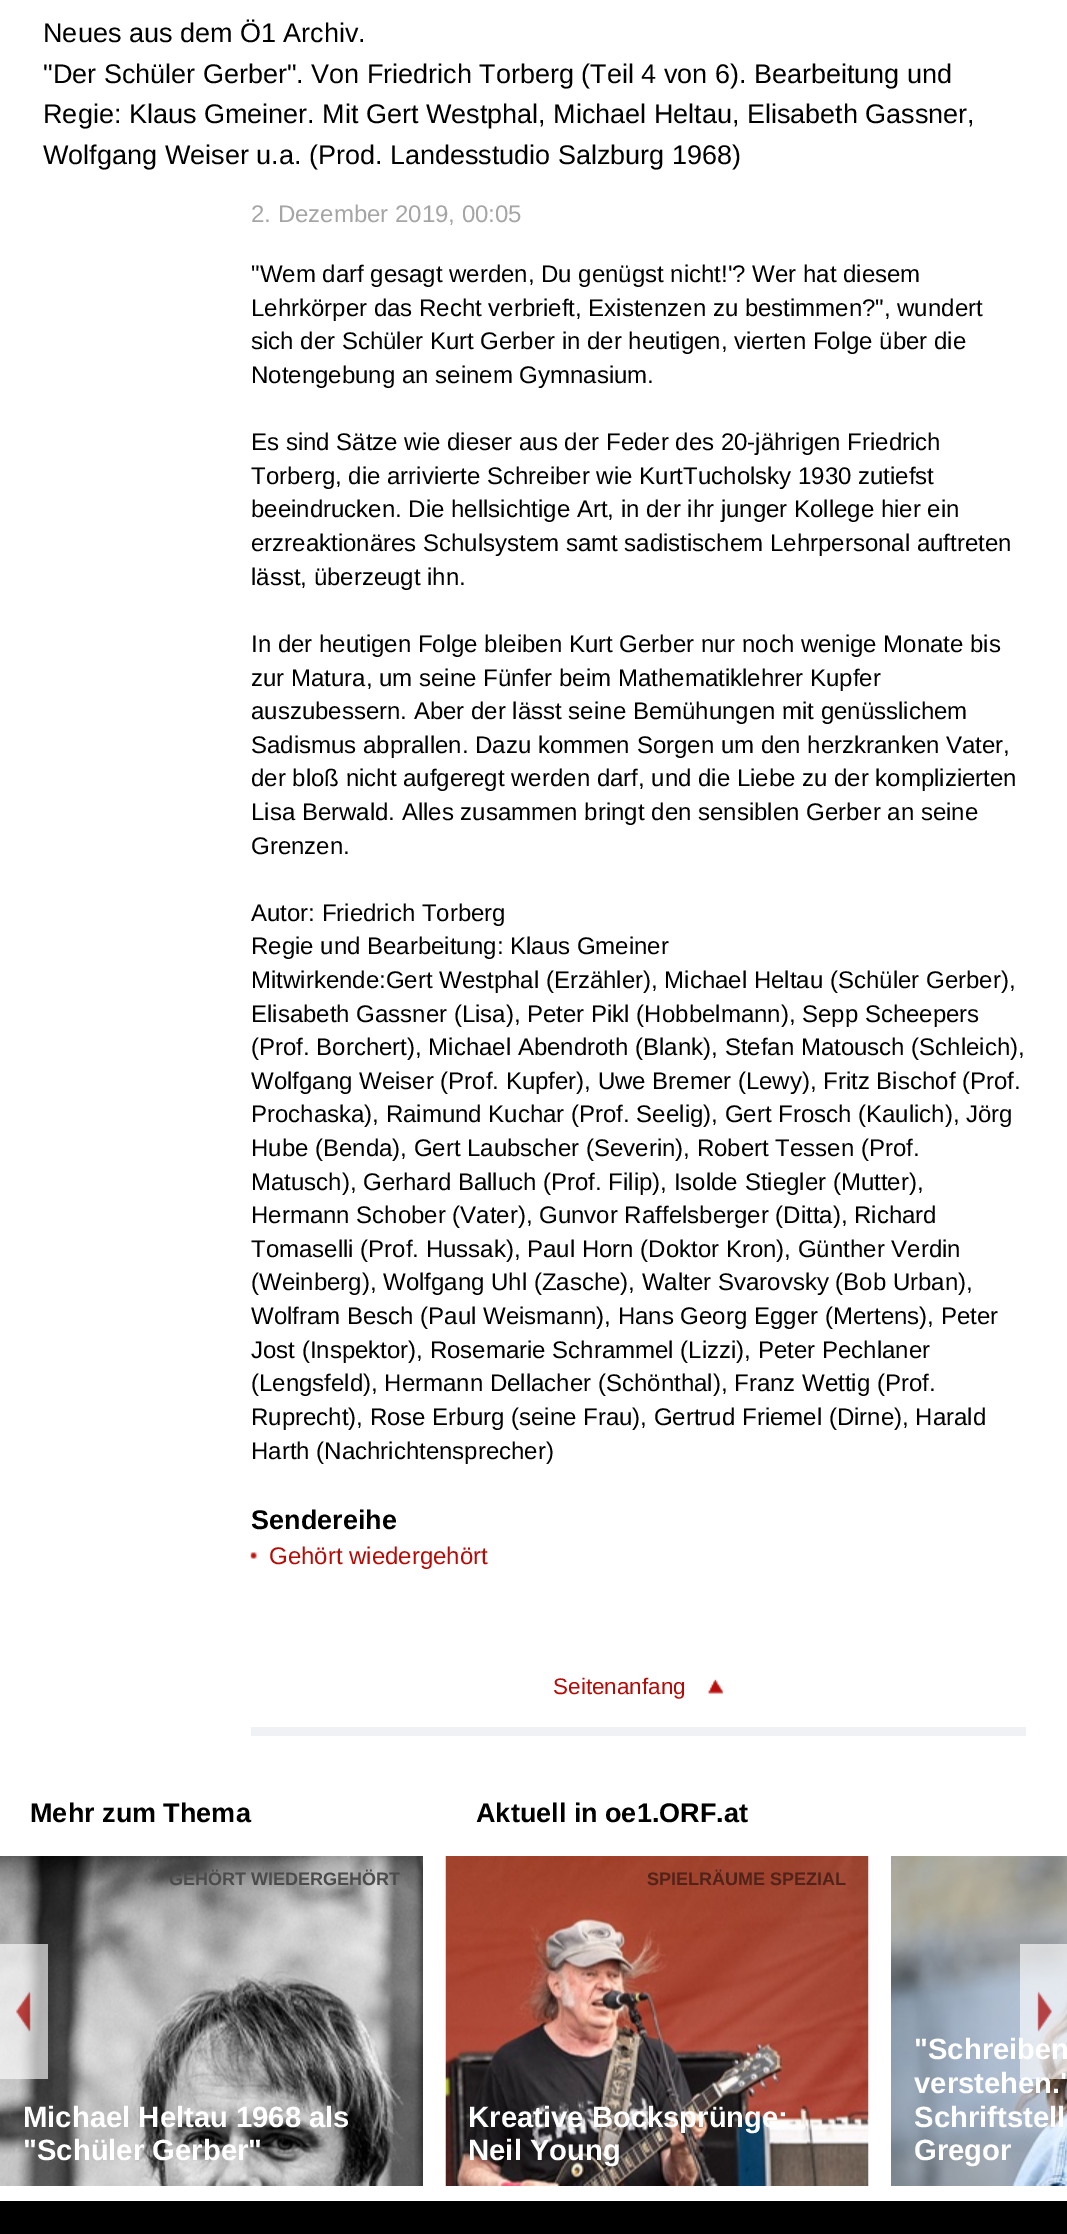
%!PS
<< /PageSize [1067 2234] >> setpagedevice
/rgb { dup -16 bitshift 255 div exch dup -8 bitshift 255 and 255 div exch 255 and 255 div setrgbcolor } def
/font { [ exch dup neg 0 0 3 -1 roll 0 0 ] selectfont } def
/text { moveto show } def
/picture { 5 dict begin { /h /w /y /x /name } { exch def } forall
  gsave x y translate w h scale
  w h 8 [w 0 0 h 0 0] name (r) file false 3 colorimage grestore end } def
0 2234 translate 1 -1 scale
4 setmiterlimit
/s1 { /LiberationSans-Regular 27 font 16#000000 rgb } def
/s2 { /LiberationSans-Regular 24 font 16#A5A5A5 rgb } def
/s3 { /LiberationSans-Regular 24 font 16#000000 rgb } def
/s4 { /LiberationSans-Bold 27 font 16#000000 rgb } def
/s5 { /LiberationSans-Regular 24 font 16#B60A06 rgb } def
/s6 { /LiberationSans-Regular 22.5 font 16#B60A06 rgb } def
/s7 { /LiberationSans-Bold 18 font 16#4B4B4B rgb } def
/s8 { /LiberationSans-Bold 29.25 font 16#FFFFFF rgb } def
/s9 { /LiberationSans-Bold 18 font 16#502218 rgb } def
16#FFFFFF rgb
0 0 1067 2234 rectfill
s1
(Neues aus dem Ö1 Archiv.) 43 42 text
("Der Schüler Gerber". Von Friedrich Torberg \(Teil 4 von 6\). Bearbeitung und) 43 83 text
(Regie: Klaus Gmeiner. Mit Gert Westphal, Michael Heltau, Elisabeth Gassner,) 43 123 text
(Wolfgang Weiser u.a. \(Prod. Landesstudio Salzburg 1968\)) 43 164 text
s2
(2. Dezember 2019, 00:05) 251 222 text
s3
("Wem darf gesagt werden, Du genügst nicht!'? Wer hat diesem) 251 282 text
(Lehrkörper das Recht verbrieft, Existenzen zu bestimmen?", wundert) 251 316 text
(sich der Schüler Kurt Gerber in der heutigen, vierten Folge über die) 251 349 text
(Notengebung an seinem Gymnasium.) 251 383 text
(Es sind Sätze wie dieser aus der Feder des 20-jährigen Friedrich) 251 450 text
(Torberg, die arrivierte Schreiber wie KurtTucholsky 1930 zutiefst) 251 484 text
(beeindrucken. Die hellsichtige Art, in der ihr junger Kollege hier ein) 251 517 text
(erzreaktionäres Schulsystem samt sadistischem Lehrpersonal auftreten) 251 551 text
(lässt, überzeugt ihn.) 251 585 text
(In der heutigen Folge bleiben Kurt Gerber nur noch wenige Monate bis) 251 652 text
(zur Matura, um seine Fünfer beim Mathematiklehrer Kupfer) 251 686 text
(auszubessern. Aber der lässt seine Bemühungen mit genüsslichem) 251 719 text
(Sadismus abprallen. Dazu kommen Sorgen um den herzkranken Vater,) 251 753 text
(der bloß nicht aufgeregt werden darf, und die Liebe zu der komplizierten) 251 786 text
(Lisa Berwald. Alles zusammen bringt den sensiblen Gerber an seine) 251 820 text
(Grenzen.) 251 854 text
(Autor: Friedrich Torberg) 251 921 text
(Regie und Bearbeitung: Klaus Gmeiner) 251 954 text
(Mitwirkende:Gert Westphal \(Erzähler\), Michael Heltau \(Schüler Gerber\),) 251 988 text
(Elisabeth Gassner \(Lisa\), Peter Pikl \(Hobbelmann\), Sepp Scheepers) 251 1022 text
(\(Prof. Borchert\), Michael Abendroth \(Blank\), Stefan Matousch \(Schleich\),) 251 1055 text
(Wolfgang Weiser \(Prof. Kupfer\), Uwe Bremer \(Lewy\), Fritz Bischof \(Prof.) 251 1089 text
(Prochaska\), Raimund Kuchar \(Prof. Seelig\), Gert Frosch \(Kaulich\), Jörg) 251 1122 text
(Hube \(Benda\), Gert Laubscher \(Severin\), Robert Tessen \(Prof.) 251 1156 text
(Matusch\), Gerhard Balluch \(Prof. Filip\), Isolde Stiegler \(Mutter\),) 251 1190 text
(Hermann Schober \(Vater\), Gunvor Raffelsberger \(Ditta\), Richard) 251 1223 text
(Tomaselli \(Prof. Hussak\), Paul Horn \(Doktor Kron\), Günther Verdin) 251 1257 text
(\(Weinberg\), Wolfgang Uhl \(Zasche\), Walter Svarovsky \(Bob Urban\),) 251 1290 text
(Wolfram Besch \(Paul Weismann\), Hans Georg Egger \(Mertens\), Peter) 251 1324 text
(Jost \(Inspektor\), Rosemarie Schrammel \(Lizzi\), Peter Pechlaner) 251 1358 text
(\(Lengsfeld\), Hermann Dellacher \(Schönthal\), Franz Wettig \(Prof.) 251 1391 text
(Ruprecht\), Rose Erburg \(seine Frau\), Gertrud Friemel \(Dirne\), Harald) 251 1425 text
(Harth \(Nachrichtensprecher\)) 251 1459 text
s4
(Sendereihe) 251 1529 text
(pic1.raw) 250 1552 7 7 picture
s5
(Gehört wiedergehört) 269 1564 text
s6
(Seitenanfang) 553 1694 text
(pic2.raw) 708 1679 15 15 picture
16#F0F1F4 rgb
251 1727 775 9 rectfill
s4
(Mehr zum Thema) 30 1822 text
(pic3.raw) 0 1856 423 330 picture
s7
(GEHÖRT WIEDERGEHÖRT) 169 1885 text
s8
(Michael Heltau 1968 als) 23 2127 text
("Schüler Gerber") 23 2160 text
s4
(Aktuell in oe1.ORF.at) 476 1822 text
(pic4.raw) 445 1856 424 330 picture
s9
(SPIELRÄUME SPEZIAL) 647 1885 text
s8
(Kreative Bocksprünge:) 468 2127 text
(Neil Young) 468 2160 text
(pic5.raw) 891 1856 176 330 picture
("Schreiben) 914 2059 text
(verstehen.) 914 2093 text
(Schriftstell) 914 2127 text
(Gregor) 914 2160 text
(pic6.raw) 0 1944 48 135 picture
(pic7.raw) 1020 1944 47 135 picture
16#000000 rgb
0 2201 1067 33 rectfill
showpage
